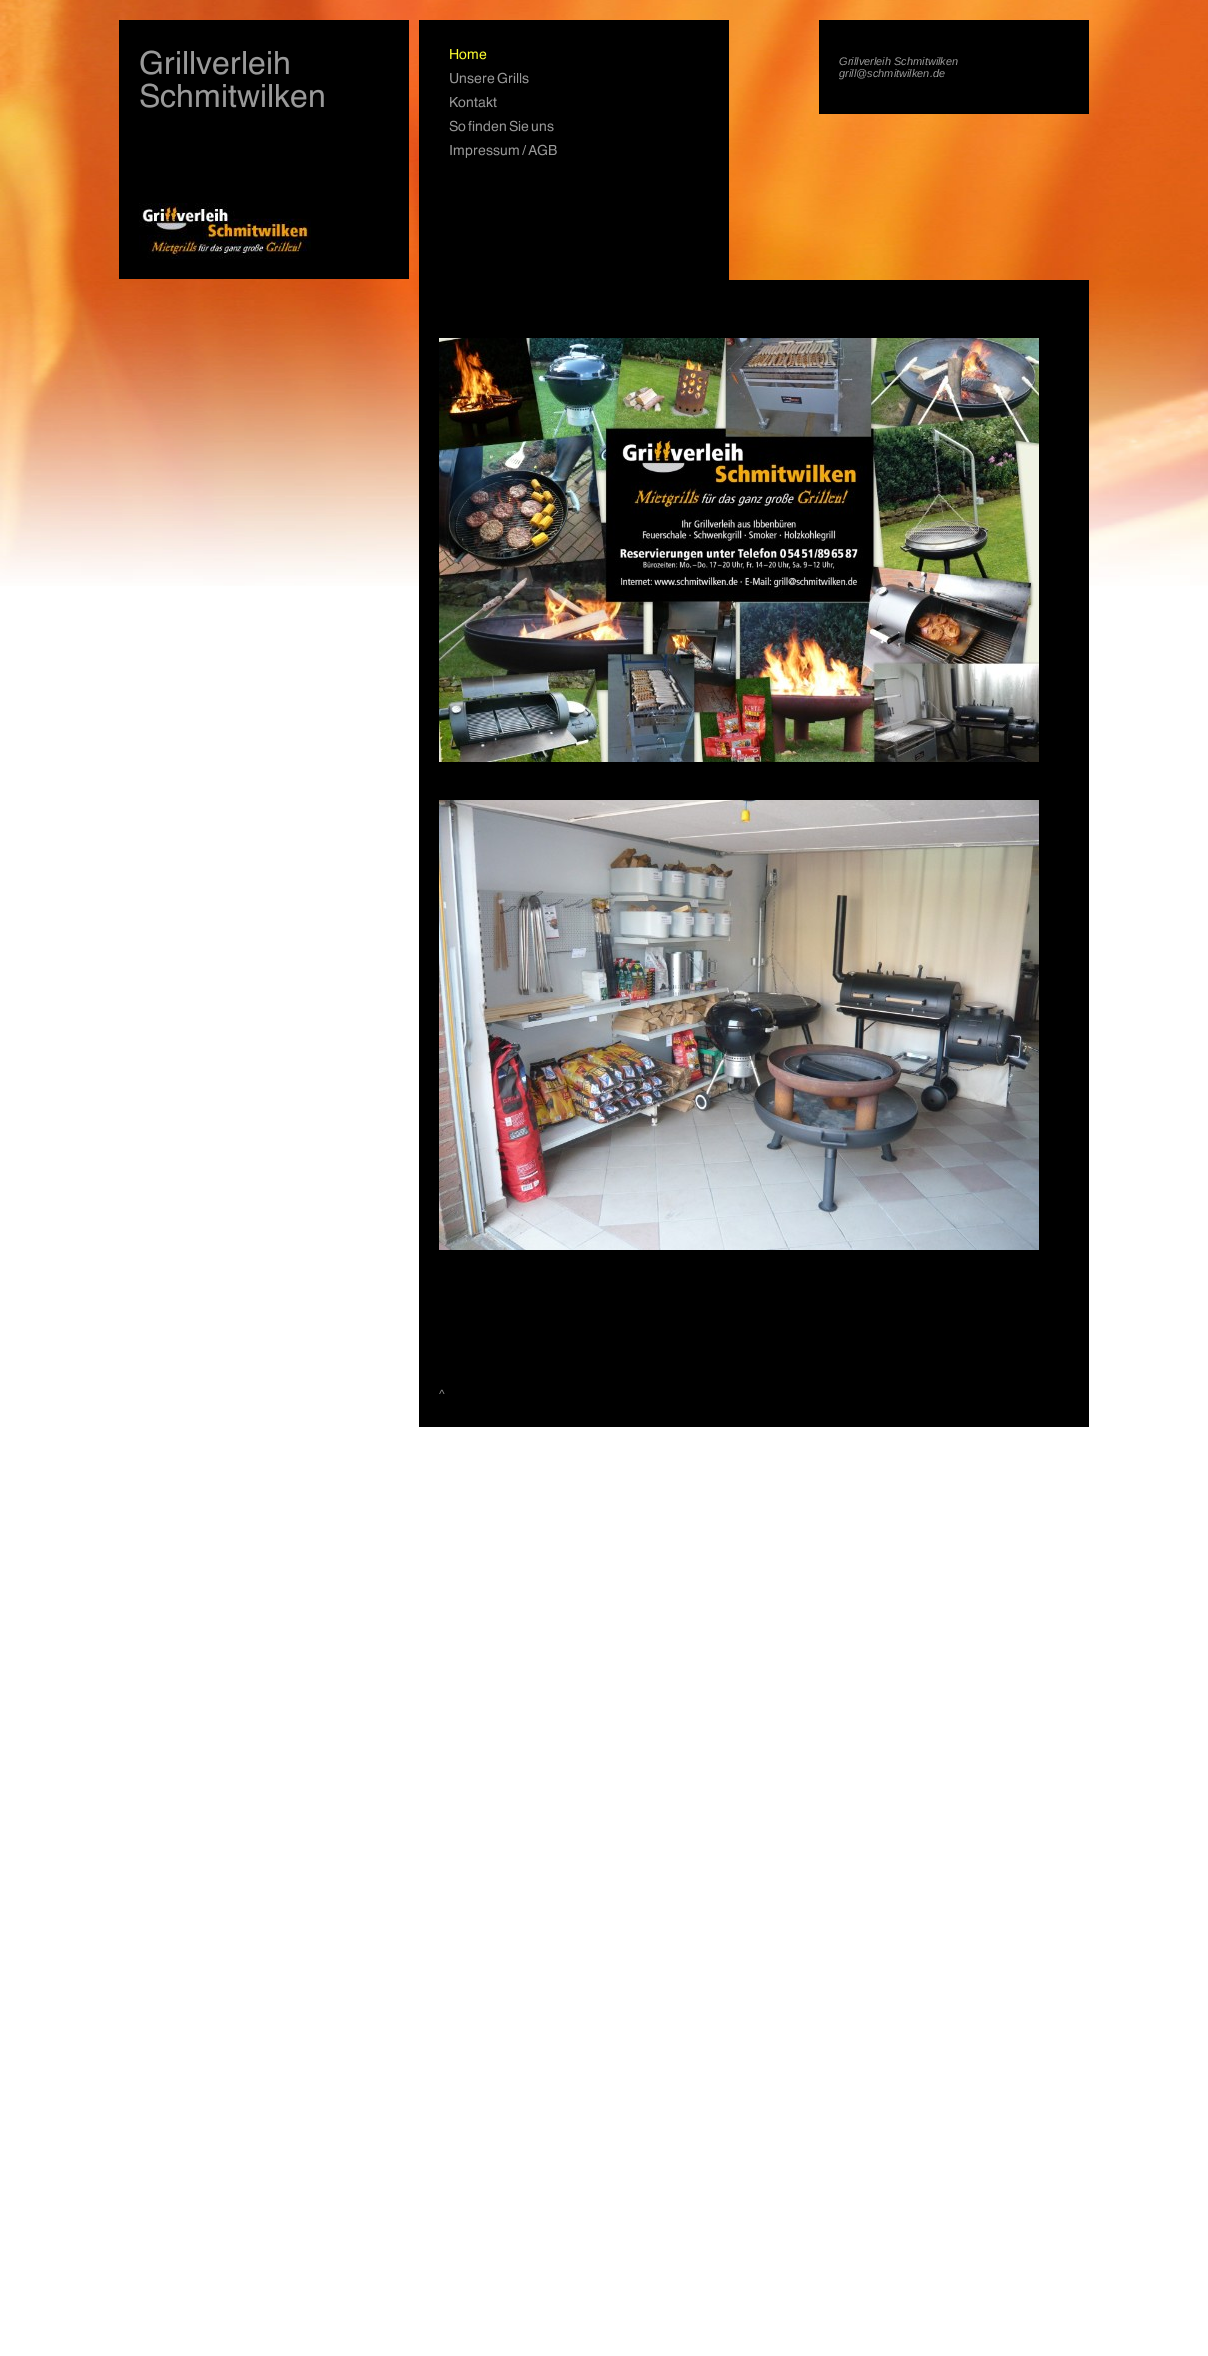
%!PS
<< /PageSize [1208 2356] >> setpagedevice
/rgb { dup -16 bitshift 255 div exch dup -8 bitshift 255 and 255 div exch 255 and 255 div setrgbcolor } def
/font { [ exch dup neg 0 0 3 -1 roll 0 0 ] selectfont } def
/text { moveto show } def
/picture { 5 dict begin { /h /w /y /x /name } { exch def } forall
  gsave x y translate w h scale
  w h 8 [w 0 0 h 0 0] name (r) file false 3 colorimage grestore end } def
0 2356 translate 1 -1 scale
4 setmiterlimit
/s1 { /LiberationSans-Italic 11 font 16#999999 rgb } def
/s2 { /LiberationSans-Regular 12 font 16#999999 rgb } def
16#FFFFFF rgb
0 0 1208 2356 rectfill
(pic1.raw) 0 0 1208 586 picture
16#000000 rgb
119 20 290 259 rectfill
(pic2.raw) 140 50 184 58 picture
(pic3.raw) 139 203 172 56 picture
419 20 310 260 rectfill
(pic4.raw) 450 49 37 11 picture
(pic5.raw) 450 72 79 12 picture
(pic6.raw) 450 97 47 11 picture
(pic7.raw) 449 120 105 12 picture
(pic8.raw) 450 144 107 14 picture
819 20 270 94 rectfill
s1
(Grillverleih Schmitwilken) 839 65 text
(grill@schmitwilken.de) 839 77 text
16#000000 rgb
419 280 670 1147 rectfill
(pic9.raw) 439 338 600 424 picture
(pic10.raw) 439 800 600 450 picture
s2
(^) 439 1398 text
showpage
